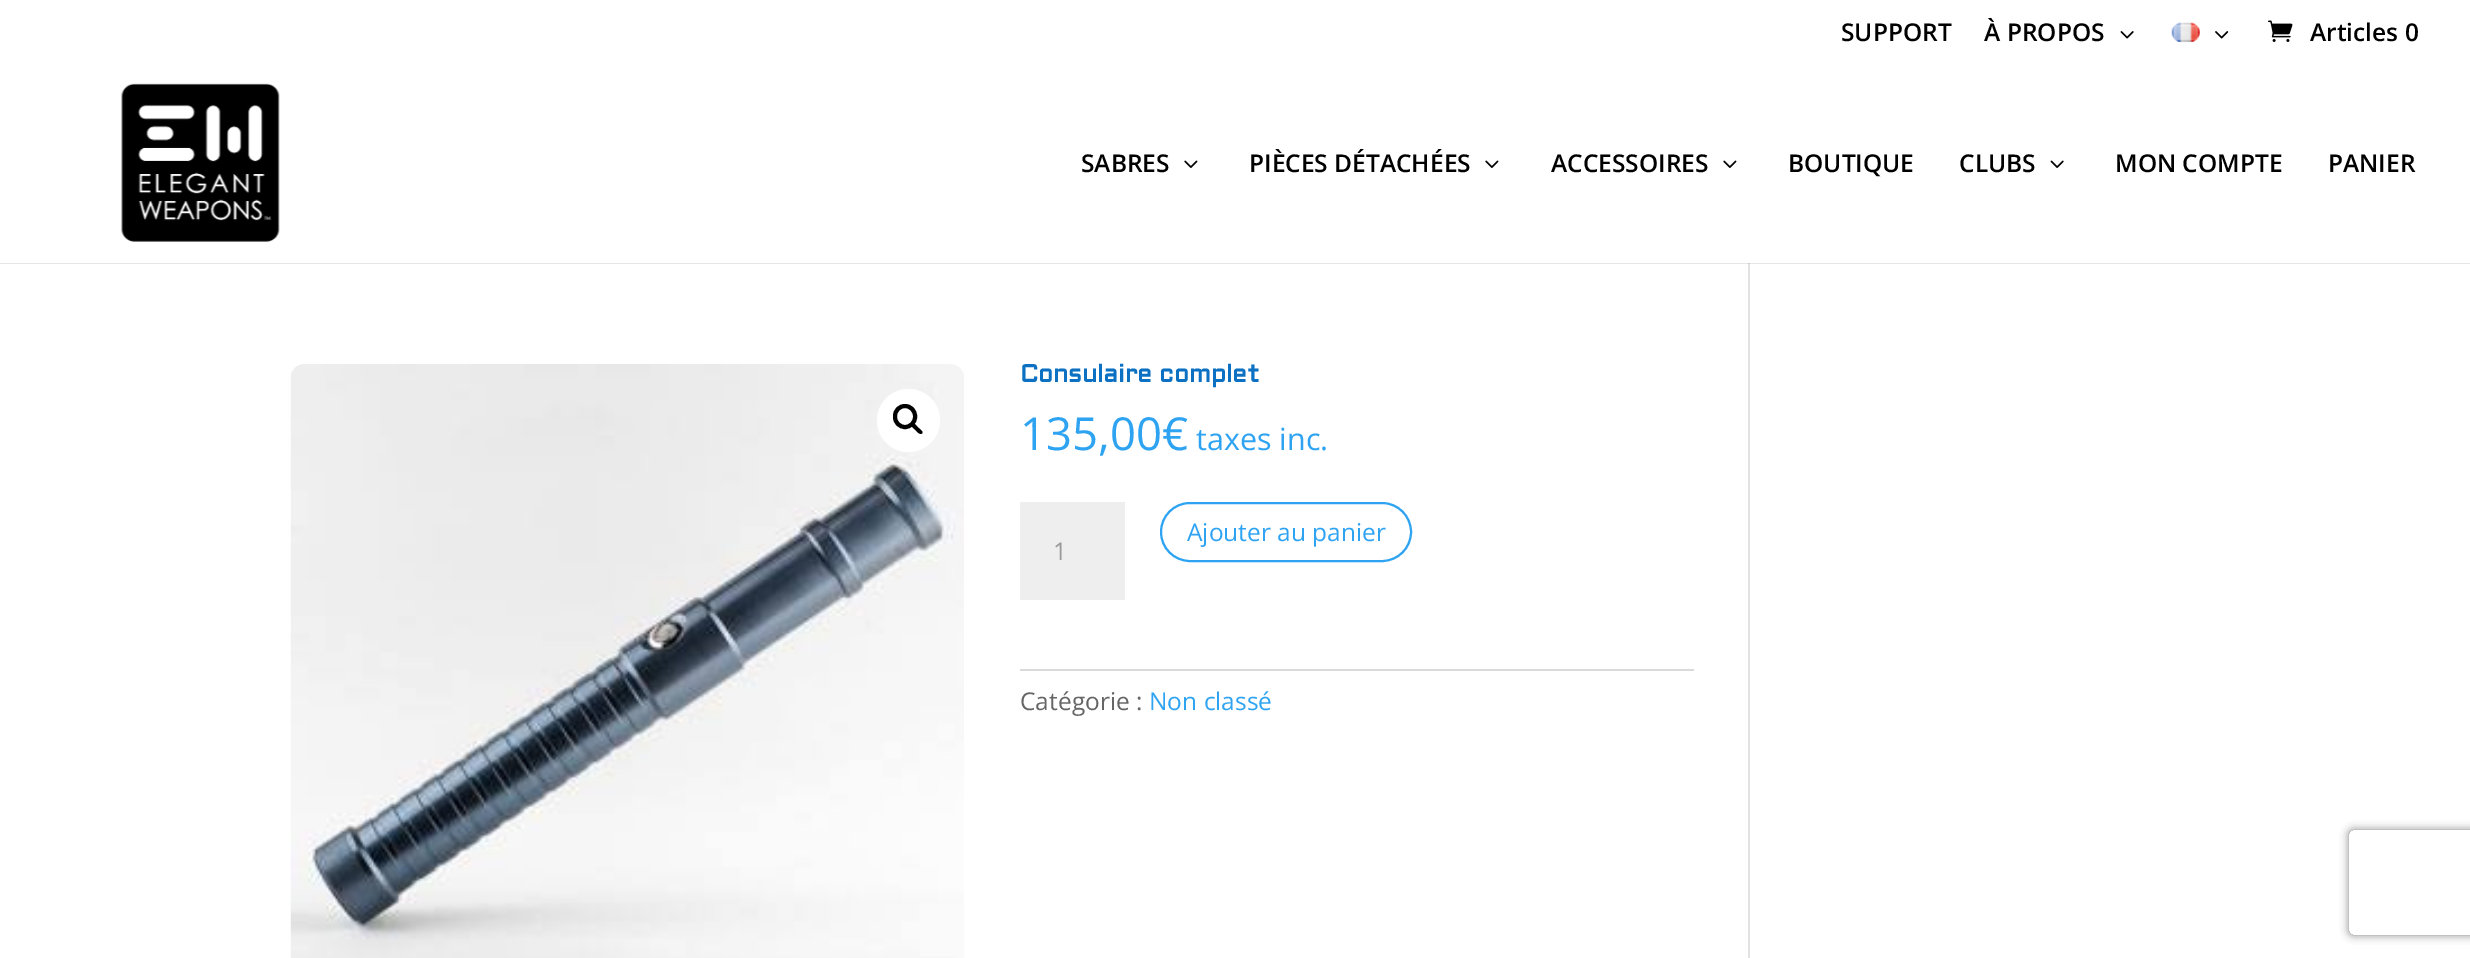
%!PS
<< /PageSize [2470 958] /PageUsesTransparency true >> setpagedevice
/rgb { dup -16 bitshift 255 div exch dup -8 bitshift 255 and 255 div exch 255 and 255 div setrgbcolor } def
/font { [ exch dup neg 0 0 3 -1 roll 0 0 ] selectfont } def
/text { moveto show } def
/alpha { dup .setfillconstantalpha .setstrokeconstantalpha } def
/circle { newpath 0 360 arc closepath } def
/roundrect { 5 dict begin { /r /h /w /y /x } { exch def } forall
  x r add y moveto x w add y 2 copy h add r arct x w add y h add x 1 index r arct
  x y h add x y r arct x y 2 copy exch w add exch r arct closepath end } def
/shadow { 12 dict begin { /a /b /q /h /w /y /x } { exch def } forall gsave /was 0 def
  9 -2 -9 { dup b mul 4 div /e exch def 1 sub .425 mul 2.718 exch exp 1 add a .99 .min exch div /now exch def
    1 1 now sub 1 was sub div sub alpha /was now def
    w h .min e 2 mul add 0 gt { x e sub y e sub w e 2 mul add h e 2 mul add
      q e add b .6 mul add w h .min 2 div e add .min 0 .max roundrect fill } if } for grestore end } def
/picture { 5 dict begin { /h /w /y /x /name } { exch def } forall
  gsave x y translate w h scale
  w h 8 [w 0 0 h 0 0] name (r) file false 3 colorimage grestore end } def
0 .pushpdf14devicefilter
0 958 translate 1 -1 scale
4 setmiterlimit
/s1 { /OpenSans-SemiBold 24.5 font 16#000000 rgb } def
/s2 { /Aldrich-Bold 24.5 font 16#0C71C3 rgb } def
/s3 { /OpenSans-Regular 45.5 font 16#2EA3F2 rgb } def
/s4 { /OpenSans-Regular 30.5 font 16#2EA3F2 rgb } def
/s5 { /OpenSans-Regular 24.5 font 16#2EA3F2 rgb } def
/s6 { /OpenSans-Regular 24.5 font 16#999999 rgb } def
/s7 { /OpenSans-Regular 24.5 font 16#666666 rgb } def
16#FFFFFF rgb
0 0 2470 958 rectfill
16#E6E6E6 rgb
0 263 2470 1 rectfill
s1
(SUPPORT) 1841 41 text
(À PROPOS) 1984 41 text
(pic1.raw) 2120 31 14 8 picture
(pic2.raw) 2171 22 29 21 picture
(pic3.raw) 2215 31 14 8 picture
(pic4.raw) 2268 20 25 22 picture
(Articles 0) 2310 41 text
(pic5.raw) 121 83 159 159 picture
(SABRES) 1081 172 text
(pic6.raw) 1184 160 14 8 picture
(PIÈCES DÉTACHÉES) 1249 172 text
(pic6.raw) 1485 160 14 8 picture
(ACCESSOIRES) 1551 172 text
(pic6.raw) 1723 160 14 8 picture
(BOUTIQUE) 1788 172 text
(CLUBS) 1959 172 text
(pic7.raw) 2050 160 14 8 picture
(MON COMPTE) 2115 172 text
(PANIER) 2328 172 text
(pic8.raw) 290 364 674 594 picture
16#FFFFFF rgb
908.5 420.5 31.5 circle fill
16#000000 rgb
4 setlinewidth
895 406 20 21 10 roundrect stroke
912 424 moveto 914 422 917 426.5 918 427.5 curveto 919 428.5 924 431.5 922 433.5 curveto 920 435.5 916.5 431 915.5 430 curveto 914.5 429 910 426 912 424 curveto closepath fill
s2
(Consulaire complet) 1020 382 text
s3
(135,00€) 1020 450 text
s4
(taxes inc.) 1196 450 text
2 setlinewidth
1161 503 250 58 29 roundrect stroke
s5
(Ajouter au panier) 1187 541 text
16#EEEEEE rgb
1020 502 105 98 rectfill
s6
(1) 1053 560 text
16#DADADA rgb
1020 669 674 2 rectfill
s7
(Catégorie :) 1020 710 text
s5
(Non classé) 1149 710 text
16#E2E2E2 rgb
1748 263 2 695 rectfill
16#CBCBCB rgb
1748 263 2 1 rectfill
gsave
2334 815 moveto 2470 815 lineto 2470 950 lineto 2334 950 lineto closepath 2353 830 moveto 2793 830 lineto 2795 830 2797 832 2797 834 curveto 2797 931 lineto 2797 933 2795 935 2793 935 curveto 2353 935 lineto 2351 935 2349 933 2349 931 curveto 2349 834 lineto 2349 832 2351 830 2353 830 curveto closepath eoclip newpath
16#808080 rgb
2349 830 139 105 4 4.5 1 shadow
grestore
.poppdf14devicefilter showpage
